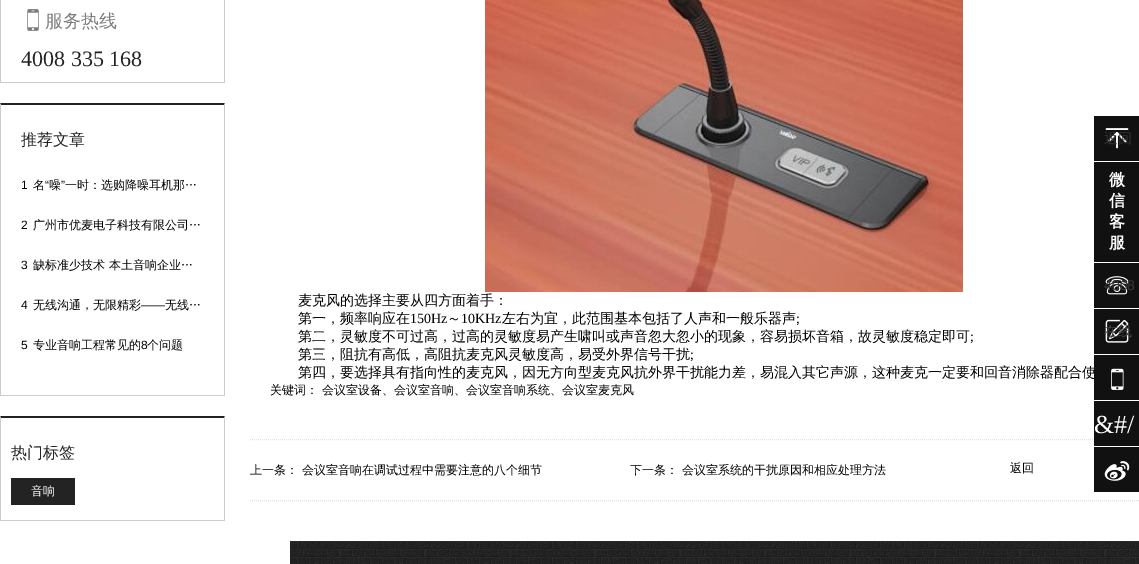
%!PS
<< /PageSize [1139 564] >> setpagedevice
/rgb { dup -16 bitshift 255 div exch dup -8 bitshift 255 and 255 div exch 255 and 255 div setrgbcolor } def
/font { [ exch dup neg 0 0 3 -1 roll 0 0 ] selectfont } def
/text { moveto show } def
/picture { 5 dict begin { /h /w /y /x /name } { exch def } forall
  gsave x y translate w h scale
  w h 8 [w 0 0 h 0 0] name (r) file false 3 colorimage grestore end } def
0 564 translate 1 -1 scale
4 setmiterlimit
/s1 { /WenQuanYiZenHei-Medium 18 font 16#7E7D7C rgb } def
/s2 { /LiberationSerif-Regular 22 font 16#232323 rgb } def
/s3 { /WenQuanYiZenHei-Medium 16 font 16#232323 rgb } def
/s4 { /LiberationSans-Regular 12 font 16#000000 rgb } def
/s5 { /WenQuanYiZenHei-Medium 12 font 16#000000 rgb } def
/s6 { /WenQuanYiZenHei-Medium 12 font 16#FFFFFF rgb } def
/s7 { /WenQuanYiZenHei-Medium 14 font 16#000000 rgb } def
/s8 { /LiberationSerif-Regular 14 font 16#000000 rgb } def
/s9 { /WenQuanYiZenHei-Medium 14 font 16#343434 rgb } def
/s10 { /WenQuanYiZenHei-Bold 16 font 16#FFFFFF rgb } def
/s11 { /LiberationSans-Regular 14 font 16#3A3A3A rgb } def
/s12 { /WenQuanYiZenHei-Medium 14 font 16#474747 rgb } def
/s13 { /LiberationSerif-Regular 26 font 16#FFFFFF rgb } def
16#FFFFFF rgb
0 0 1139 564 rectfill
16#CCCCCC rgb
225 -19 moveto 225 83 lineto 224 82 lineto 224 -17 lineto closepath fill
0 82 225 1 rectfill
0 83 moveto 0 -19 lineto 1 -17 lineto 1 82 lineto closepath fill
(pic1.raw) 27 9 12 22 picture
s1
(服务热线) 45 27 text
s2
(4008 335 168) 21 66 text
0 103 moveto 225 103 lineto 224 105 lineto 1 105 lineto closepath fill
16#CCCCCC rgb
225 103 moveto 225 396 lineto 224 395 lineto 224 105 lineto closepath fill
0 395 225 1 rectfill
0 396 moveto 0 103 lineto 1 105 lineto 1 395 lineto closepath fill
s3
(推荐文章) 21 145 text
s4
(1) 21 189 text
s5
(名) 33 189 text
s4
(“) 45 189 text
s5
(噪) 49 189 text
s4
(”) 61 189 text
s5
(一时：选购降噪耳机那…) 65 189 text
s4
(2) 21 229 text
s5
(广州市优麦电子科技有限公司…) 33 229 text
s4
(3) 21 269 text
s5
(缺标准少技术 本土音响企业…) 33 269 text
s4
(4) 21 309 text
s5
(无线沟通，无限精彩) 33 309 text
s4
(——) 141 309 text
s5
(无线…) 165 309 text
s4
(5) 21 349 text
s5
(专业音响工程常见的) 33 349 text
s4
(8) 141 349 text
s5
(个问题) 147 349 text
16#232323 rgb
0 416 moveto 225 416 lineto 224 418 lineto 1 418 lineto closepath fill
16#CCCCCC rgb
225 416 moveto 225 521 lineto 224 520 lineto 224 418 lineto closepath fill
0 520 225 1 rectfill
0 521 moveto 0 416 lineto 1 418 lineto 1 520 lineto closepath fill
s3
(热门标签) 11 458 text
11 478 64 27 rectfill
s6
(音响) 31 495 text
(pic2.raw) 485 0 478 292 picture
s7
(麦克风的选择主要从四方面着手：) 298 305 text
(第一，频率响应在) 298 323 text
s8
(150Hz) 410 323 text
s7
(～) 447 323 text
s8
(10KHz) 461 323 text
s7
(左右为宜，此范围基本包括了人声和一般乐器声) 502 323 text
s8
(;) 796 323 text
s7
(第二，灵敏度不可过高，过高的灵敏度易产生啸叫或声音忽大忽小的现象，容易损坏音箱，故灵敏度稳定即可) 298 341 text
s8
(;) 970 341 text
s7
(第三，阻抗有高低，高阻抗麦克风灵敏度高，易受外界信号干扰) 298 359 text
s8
(;) 690 359 text
s7
(第四，要选择具有指向性的麦克风，因无方向型麦克风抗外界干扰能力差，易混入其它声源，这种麦克一定要和回音消除器配合使) 298 377 text
s5
(关键词： 会议室设备、会议室音响、会议室音响系统、会议室麦克风) 270 394 text
16#E1E1E1 rgb
[1 1] 0 setdash
250 439.5 moveto 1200 439.5 lineto stroke
250 500.5 moveto 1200 500.5 lineto stroke
s5
(上一条： 会议室音响在调试过程中需要注意的八个细节) 250 474 text
(下一条： 会议室系统的干扰原因和相应处理方法) 630 474 text
(返回) 1010 472 text
16#111111 rgb
1094 116 45 45 rectfill
(pic3.raw) 1105 128 24 21 picture
s9
(返回) 1104 143 text
16#111111 rgb
1094 162 45 100 rectfill
s10
(微) 1109 185 text
(信) 1109 206 text
(客) 1109 227 text
(服) 1109 248 text
16#111111 rgb
1094 263 45 45 rectfill
(pic4.raw) 1105 276 24 19 picture
s11
(4008) 1104 290 text
16#111111 rgb
1094 309 45 45 rectfill
(pic5.raw) 1105 319 24 24 picture
s12
(在线) 1104 336 text
16#111111 rgb
1094 355 45 45 rectfill
(pic6.raw) 1111 368 13 22 picture
1094 401 45 45 rectfill
s13
(&#/) 1094 433 text
16#111111 rgb
1094 447 45 45 rectfill
(pic7.raw) 1104 461 26 20 picture
(pic8.raw) 290 541 849 23 picture
showpage
